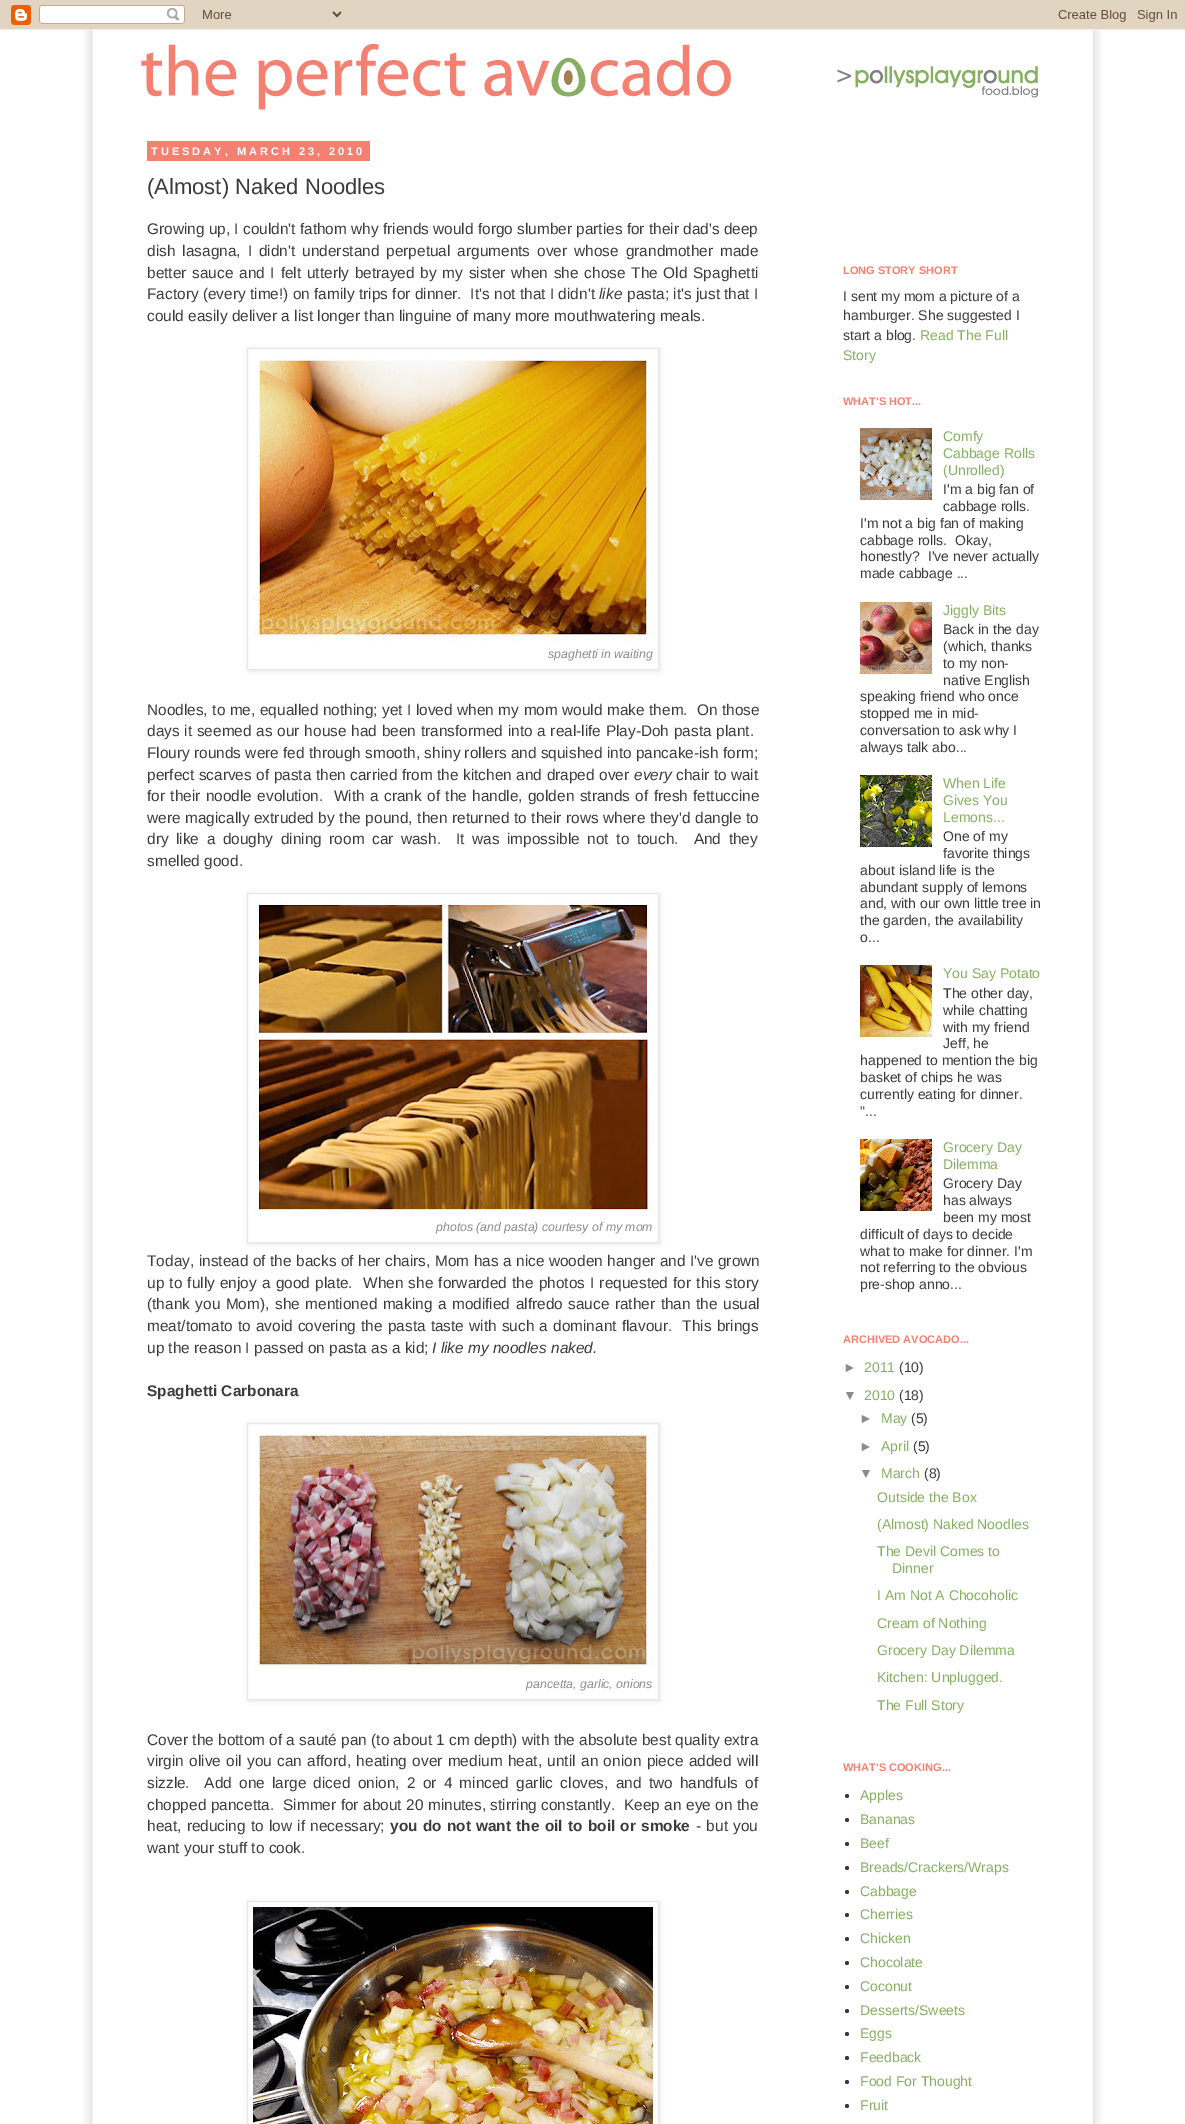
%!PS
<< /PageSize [1185 2124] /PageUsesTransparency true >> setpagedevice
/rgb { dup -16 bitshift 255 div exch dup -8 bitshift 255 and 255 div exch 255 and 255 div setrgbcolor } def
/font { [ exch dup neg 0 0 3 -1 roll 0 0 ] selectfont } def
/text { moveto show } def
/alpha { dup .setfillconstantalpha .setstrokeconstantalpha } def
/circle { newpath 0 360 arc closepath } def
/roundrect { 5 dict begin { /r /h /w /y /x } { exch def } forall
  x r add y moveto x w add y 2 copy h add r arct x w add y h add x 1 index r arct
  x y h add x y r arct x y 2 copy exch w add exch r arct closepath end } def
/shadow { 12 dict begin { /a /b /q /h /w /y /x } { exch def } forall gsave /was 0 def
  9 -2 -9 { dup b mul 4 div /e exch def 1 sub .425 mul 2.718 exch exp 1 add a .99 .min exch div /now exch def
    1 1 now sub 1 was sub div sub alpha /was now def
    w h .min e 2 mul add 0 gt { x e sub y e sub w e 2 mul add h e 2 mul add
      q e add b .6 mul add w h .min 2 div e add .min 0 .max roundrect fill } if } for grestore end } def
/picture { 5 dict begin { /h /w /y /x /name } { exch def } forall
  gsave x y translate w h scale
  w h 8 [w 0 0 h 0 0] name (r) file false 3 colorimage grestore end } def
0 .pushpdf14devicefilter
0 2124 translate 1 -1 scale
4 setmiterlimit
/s1 { /LiberationSans-Regular 22 font 16#3B3B3B rgb } def
/s2 { /LiberationSans-Regular 15.4 font 16#3B3B3B rgb } def
/s3 { /LiberationSans-Italic 15.4 font 16#3B3B3B rgb } def
/s4 { /LiberationSans-Italic 12.3 font 16#8B8B8B rgb } def
/s5 { /LiberationSans-Bold 15.4 font 16#3B3B3B rgb } def
/s6 { /LiberationSans-Bold 11 font 16#F48072 rgb } def
/s7 { /LiberationSans-Regular 14 font 16#3B3B3B rgb } def
/s8 { /LiberationSans-Regular 14 font 16#86AF61 rgb } def
/s9 { /LiberationSans-Regular 14 font 16#8B8B8B rgb } def
16#FFFFFF rgb
0 0 1185 2124 rectfill
(pic1.raw) 83 400 1019 1724 picture
(pic2.raw) 0 0 1185 30 picture
(pic3.raw) 83 30 1019 370 picture
93 30 1000 2094 rectfill
(pic4.raw) 141 44 897 66 picture
16#F48072 rgb
147 141 223 20 rectfill
/LiberationSans-Bold 11 font
16#FFFFFF rgb
151 155 moveto 3 0 (TUESDAY, MARCH 23, 2010) ashow
s1
(\(Almost\) Naked Noodles) 147 194 text
s2
(Growing up, I couldn't fathom why friends would forgo slumber parties for their dad's deep) 147 234 text
147 256 moveto 2.75 0 32 (dish lasagna, I didn't understand perpetual arguments over whose grandmother made) widthshow
147 278 moveto 1.5 0 32 (better sauce and I felt utterly betrayed by my sister when she chose The Old Spaghetti) widthshow
147 299 moveto 0.1 0 32 (Factory \(every time!\) on family trips for dinner.  It's not that I didn't) widthshow
s3
(like) 599 299 text
s2
(pasta; it's just that I) 627 299 text
(could easily deliver a list longer than linguine of many more mouthwatering meals.) 147 321 text
gsave
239 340 moveto 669 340 lineto 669 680 lineto 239 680 lineto closepath 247 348 moveto 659 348 lineto 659 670 lineto 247 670 lineto closepath eoclip newpath
16#000000 rgb
248 349 412 322 0 2.5 0.1 shadow
grestore
16#E8E8E8 rgb
247.5 348.5 411 321 rectstroke
(pic5.raw) 253 354 400 287 picture
s4
(spaghetti in waiting) 548 658 text
/LiberationSans-Regular 15.4 font
16#3B3B3B rgb
147 715 moveto 0.25 0 32 (Noodles, to me, equalled nothing; yet I loved when my mom would make them.  On those) widthshow
147 736 moveto 0.5 0 32 (days it seemed as our house had been transformed into a real-life Play-Doh pasta plant.) widthshow
(Floury rounds were fed through smooth, shiny rollers and squished into pancake-ish form;) 147 758 text
147 780 moveto 0.25 0 32 (perfect scarves of pasta then carried from the kitchen and draped over) widthshow
s3
(every) 634 780 text
s2
(chair to wait) 676 780 text
147 801 moveto 1.1 0 32 (for their noodle evolution.  With a crank of the handle, golden strands of fresh fettuccine) widthshow
147 823 moveto 0.4 0 32 (were magically extruded by the pound, then returned to their rows where they'd dangle to) widthshow
147 844 moveto 3.25 0 32 (dry like a doughy dining room car wash.  It was impossible not to touch.  And they) widthshow
(smelled good.) 147 866 text
gsave
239 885 moveto 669 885 lineto 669 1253 lineto 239 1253 lineto closepath 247 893 moveto 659 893 lineto 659 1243 lineto 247 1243 lineto closepath eoclip newpath
16#000000 rgb
248 894 412 350 0 2.5 0.1 shadow
grestore
16#E8E8E8 rgb
247.5 893.5 411 349 rectstroke
(pic6.raw) 253 899 400 312 picture
s4
(photos \(and pasta\) courtesy of my mom) 436 1231 text
/LiberationSans-Regular 15.4 font
16#3B3B3B rgb
147 1266 moveto 0.25 0 32 (Today, instead of the backs of her chairs, Mom has a nice wooden hanger and I've grown) widthshow
147 1288 moveto 0.9 0 32 (up to fully enjoy a good plate.  When she forwarded the photos I requested for this story) widthshow
147 1309 moveto 1.25 0 32 (\(thank you Mom\), she mentioned making a modified alfredo sauce rather than the usual) widthshow
147 1331 moveto 0.9 0 32 (meat/tomato to avoid covering the pasta taste with such a dominant flavour.  This brings) widthshow
(up the reason I passed on pasta as a kid;) 147 1353 text
s3
(I like my noodles naked.) 432 1353 text
s5
(Spaghetti Carbonara) 147 1396 text
gsave
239 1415 moveto 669 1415 lineto 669 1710 lineto 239 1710 lineto closepath 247 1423 moveto 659 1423 lineto 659 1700 lineto 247 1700 lineto closepath eoclip newpath
16#000000 rgb
248 1424 412 277 0 2.5 0.1 shadow
grestore
16#E8E8E8 rgb
247.5 1423.5 411 276 rectstroke
(pic7.raw) 253 1429 400 239 picture
s4
(pancetta, garlic, onions) 526 1688 text
s2
(Cover the bottom of a sauté pan \(to about 1 cm depth\) with the absolute best quality extra) 147 1745 text
147 1766 moveto 1.1 0 32 (virgin olive oil you can afford, heating over medium heat, until an onion piece added will) widthshow
147 1788 moveto 3 0 32 (sizzle.  Add one large diced onion, 2 or 4 minced garlic cloves, and two handfuls of) widthshow
147 1810 moveto 0.25 0 32 (chopped pancetta.  Simmer for about 20 minutes, stirring constantly.  Keep an eye on the) widthshow
147 1831 moveto 1 0 32 (heat, reducing to low if necessary;) widthshow
/LiberationSans-Bold 15.4 font
390 1831 moveto 1 0 32 (you do not want the oil to boil or smoke) widthshow
/LiberationSans-Regular 15.4 font
696 1831 moveto 1 0 32 (- but you) widthshow
(want your stuff to cook.) 147 1853 text
gsave
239 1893 moveto 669 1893 lineto 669 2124 lineto 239 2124 lineto closepath 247 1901 moveto 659 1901 lineto 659 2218 lineto 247 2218 lineto closepath eoclip newpath
16#000000 rgb
248 1902 412 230 0 2.5 0.1 shadow
grestore
16#E8E8E8 rgb
247.5 1901.5 411 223 rectstroke
(pic8.raw) 253 1907 400 217 picture
s6
(LONG STORY SHORT) 843 274 text
s7
(I sent my mom a picture of a) 843 301 text
(hamburger. She suggested I) 843 320 text
(start a blog.) 843 340 text
s8
(Read The Full) 920 340 text
(Story) 843 360 text
s6
(WHAT'S HOT...) 843 405 text
(pic9.raw) 860 428 72 72 picture
s8
(Comfy) 943 441 text
(Cabbage Rolls) 943 458 text
(\(Unrolled\)) 943 475 text
s7
(I'm a big fan of) 943 494 text
(cabbage rolls.) 943 511 text
(I'm not a big fan of making) 860 528 text
(cabbage rolls.  Okay,) 860 545 text
(honestly?  I've never actually) 860 561 text
(made cabbage ...) 860 578 text
(pic10.raw) 860 602 72 72 picture
s8
(Jiggly Bits) 943 615 text
s7
(Back in the day) 943 634 text
(\(which, thanks) 943 651 text
(to my non-) 943 668 text
(native English) 943 685 text
(speaking friend who once) 860 701 text
(stopped me in mid-) 860 718 text
(conversation to ask why I) 860 735 text
(always talk abo...) 860 752 text
(pic11.raw) 860 775 72 72 picture
s8
(When Life) 943 788 text
(Gives You) 943 805 text
(Lemons...) 943 822 text
s7
(One of my) 943 841 text
(favorite things) 943 858 text
(about island life is the) 860 875 text
(abundant supply of lemons) 860 892 text
(and, with our own little tree in) 860 908 text
(the garden, the availability) 860 925 text
(o...) 860 942 text
(pic12.raw) 860 965 72 72 picture
s8
(You Say Potato) 943 978 text
s7
(The other day,) 943 998 text
(while chatting) 943 1015 text
(with my friend) 943 1032 text
(Jeff, he) 943 1048 text
(happened to mention the big) 860 1065 text
(basket of chips he was) 860 1082 text
(currently eating for dinner.) 860 1099 text
("...) 860 1116 text
(pic13.raw) 860 1139 72 72 picture
s8
(Grocery Day) 943 1152 text
(Dilemma) 943 1169 text
s7
(Grocery Day) 943 1188 text
(has always) 943 1205 text
(been my most) 943 1222 text
(difficult of days to decide) 860 1239 text
(what to make for dinner. I'm) 860 1256 text
(not referring to the obvious) 860 1272 text
(pre-shop anno...) 860 1289 text
s6
(ARCHIVED AVOCADO...) 843 1343 text
s9
(►) 843 1372 text
s8
(2011) 864 1372 text
s7
(\(10\)) 899 1372 text
s9
(▼) 843 1400 text
s8
(2010) 864 1400 text
s7
(\(18\)) 899 1400 text
s9
(►) 859 1423 text
s8
(May) 881 1423 text
s7
(\(5\)) 911 1423 text
s9
(►) 859 1451 text
s8
(April) 881 1451 text
s7
(\(5\)) 913 1451 text
s9
(▼) 859 1478 text
s8
(March) 881 1478 text
s7
(\(8\)) 924 1478 text
s8
(Outside the Box) 877 1502 text
(\(Almost\) Naked Noodles) 877 1529 text
(The Devil Comes to) 877 1556 text
(Dinner) 892 1573 text
(I Am Not A Chocoholic) 877 1600 text
(Cream of Nothing) 877 1628 text
(Grocery Day Dilemma) 877 1655 text
(Kitchen: Unplugged.) 877 1682 text
(The Full Story) 877 1710 text
s6
(WHAT'S COOKING...) 843 1771 text
16#3B3B3B rgb
847 1796 2 circle fill
s8
(Apples) 860 1800 text
16#3B3B3B rgb
847 1820 2 circle fill
s8
(Bananas) 860 1824 text
16#3B3B3B rgb
847 1844 2 circle fill
s8
(Beef) 860 1848 text
16#3B3B3B rgb
847 1868 2 circle fill
s8
(Breads/Crackers/Wraps) 860 1872 text
16#3B3B3B rgb
847 1892 2 circle fill
s8
(Cabbage) 860 1896 text
16#3B3B3B rgb
847 1915 2 circle fill
s8
(Cherries) 860 1919 text
16#3B3B3B rgb
847 1939 2 circle fill
s8
(Chicken) 860 1943 text
16#3B3B3B rgb
847 1963 2 circle fill
s8
(Chocolate) 860 1967 text
16#3B3B3B rgb
847 1987 2 circle fill
s8
(Coconut) 860 1991 text
16#3B3B3B rgb
847 2011 2 circle fill
s8
(Desserts/Sweets) 860 2015 text
16#3B3B3B rgb
847 2034 2 circle fill
s8
(Eggs) 860 2038 text
16#3B3B3B rgb
847 2058 2 circle fill
s8
(Feedback) 860 2062 text
16#3B3B3B rgb
847 2082 2 circle fill
s8
(Food For Thought) 860 2086 text
16#3B3B3B rgb
847 2106 2 circle fill
s8
(Fruit) 860 2110 text
.poppdf14devicefilter showpage
